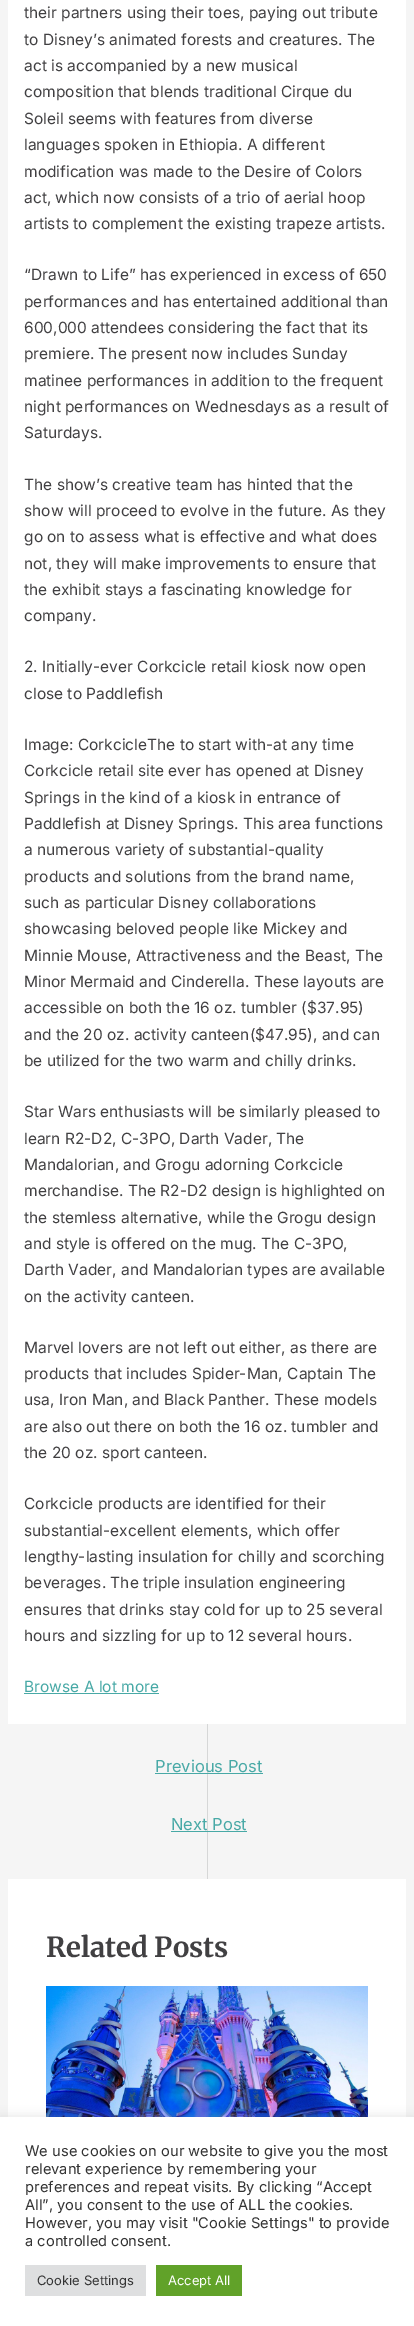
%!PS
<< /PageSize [414 2326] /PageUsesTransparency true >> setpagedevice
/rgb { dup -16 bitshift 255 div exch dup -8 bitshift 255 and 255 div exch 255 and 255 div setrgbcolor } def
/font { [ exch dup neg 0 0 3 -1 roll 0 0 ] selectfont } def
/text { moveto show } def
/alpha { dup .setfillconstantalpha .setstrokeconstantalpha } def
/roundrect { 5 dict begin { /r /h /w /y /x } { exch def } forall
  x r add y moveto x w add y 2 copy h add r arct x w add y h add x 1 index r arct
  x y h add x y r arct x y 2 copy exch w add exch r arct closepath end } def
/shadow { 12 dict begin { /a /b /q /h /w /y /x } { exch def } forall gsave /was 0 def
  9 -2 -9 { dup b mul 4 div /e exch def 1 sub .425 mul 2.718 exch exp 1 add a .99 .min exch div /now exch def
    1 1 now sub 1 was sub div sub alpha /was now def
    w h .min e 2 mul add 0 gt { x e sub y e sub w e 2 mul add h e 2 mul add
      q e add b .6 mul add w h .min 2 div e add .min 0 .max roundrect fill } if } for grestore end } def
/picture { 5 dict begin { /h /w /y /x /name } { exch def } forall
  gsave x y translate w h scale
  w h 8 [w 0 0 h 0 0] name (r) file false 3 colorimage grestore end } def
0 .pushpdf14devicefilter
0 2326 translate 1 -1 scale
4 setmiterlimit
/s1 { /Inter-Regular 15.5 font 16#414042 rgb } def
/s2 { /Inter-Regular 15.5 font 16#48A9A6 rgb } def
/s3 { /Inter-Regular 16.5 font 16#48A9A6 rgb } def
/s4 { /Merriweather-Light 27.5 font 16#414042 rgb } def
/s5 { /Inter-Regular 14.7 font 16#333333 rgb } def
/s6 { /Inter-Regular 13 font 16#333333 rgb } def
/s7 { /Inter-Regular 13 font 16#FFFFFF rgb } def
16#F5F5F5 rgb
0 0 414 2326 rectfill
16#D6D7D7 rgb
207 1724 1 155 rectfill
16#FFFFFF rgb
8 0 398 1724 rectfill
s1
(their partners using their toes, paying out tribute) 24 18 text
(to Disney’s animated forests and creatures. The) 24 45 text
(act is accompanied by a new musical) 24 71 text
(composition that blends traditional Cirque du) 24 97 text
(Soleil seems with features from diverse) 24 124 text
(languages spoken in Ethiopia. A different) 24 150 text
(modification was made to the Desire of Colors) 24 177 text
(act, which now consists of a trio of aerial hoop) 24 203 text
(artists to complement the existing trapeze artists.) 24 229 text
(“Drawn to Life” has experienced in excess of 650) 24 280 text
(performances and has entertained additional than) 24 307 text
(600,000 attendees considering the fact that its) 24 333 text
(premiere. The present now includes Sunday) 24 359 text
(matinee performances in addition to the frequent) 24 386 text
(night performances on Wednesdays as a result of) 24 412 text
(Saturdays.) 24 438 text
(The show’s creative team has hinted that the) 24 490 text
(show will proceed to evolve in the future. As they) 24 516 text
(go on to assess what is effective and what does) 24 542 text
(not, they will make improvements to ensure that) 24 569 text
(the exhibit stays a fascinating knowledge for) 24 595 text
(company.) 24 621 text
(2. Initially-ever Corkcicle retail kiosk now open) 24 672 text
(close to Paddlefish) 24 699 text
(Image: CorkcicleThe to start with-at any time) 24 750 text
(Corkcicle retail site ever has opened at Disney) 24 776 text
(Springs in the kind of a kiosk in entrance of) 24 803 text
(Paddlefish at Disney Springs. This area functions) 24 829 text
(a numerous variety of substantial-quality) 24 855 text
(products and solutions from the brand name,) 24 882 text
(such as particular Disney collaborations) 24 908 text
(showcasing beloved people like Mickey and) 24 934 text
(Minnie Mouse, Attractiveness and the Beast, The) 24 961 text
(Minor Mermaid and Cinderella. These layouts are) 24 987 text
(accessible on both the 16 oz. tumbler \($37.95\)) 24 1013 text
(and the 20 oz. activity canteen\($47.95\), and can) 24 1040 text
(be utilized for the two warm and chilly drinks.) 24 1066 text
(Star Wars enthusiasts will be similarly pleased to) 24 1117 text
(learn R2-D2, C-3PO, Darth Vader, The) 24 1144 text
(Mandalorian, and Grogu adorning Corkcicle) 24 1170 text
(merchandise. The R2-D2 design is highlighted on) 24 1196 text
(the stemless alternative, while the Grogu design) 24 1223 text
(and style is offered on the mug. The C-3PO,) 24 1249 text
(Darth Vader, and Mandalorian types are available) 24 1275 text
(on the activity canteen.) 24 1302 text
(Marvel lovers are not left out either, as there are) 24 1353 text
(products that includes Spider-Man, Captain The) 24 1379 text
(usa, Iron Man, and Black Panther. These models) 24 1405 text
(are also out there on both the 16 oz. tumbler and) 24 1432 text
(the 20 oz. sport canteen.) 24 1458 text
(Corkcicle products are identified for their) 24 1509 text
(substantial-excellent elements, which offer) 24 1536 text
(lengthy-lasting insulation for chilly and scorching) 24 1562 text
(beverages. The triple insulation engineering) 24 1588 text
(ensures that drinks stay cold for up to 25 several) 24 1615 text
(hours and sizzling for up to 12 several hours.) 24 1641 text
s2
(Browse A lot more) 24 1692 text
24 1693 135 1 rectfill
s3
(Previous Post) 155 1772 text
155 1773 108 1 rectfill
(Next Post) 171 1830 text
171 1831 76 1 rectfill
16#FFFFFF rgb
8 1879 398 238 rectfill
s4
(Related Posts) 46 1957 text
(pic1.raw) 46 1986 322 131 picture
16#ACABAB rgb
0 2116 414 209 0 5 0.3 shadow
16#FFFFFF rgb
0 2117 414 209 rectfill
s5
(We use cookies on our website to give you the most) 25 2156 text
(relevant experience by remembering your) 25 2174 text
(preferences and repeat visits. By clicking “Accept) 25 2192 text
(All”, you consent to the use of ALL the cookies.) 25 2210 text
(However, you may visit "Cookie Settings" to provide) 25 2228 text
(a controlled consent.) 25 2246 text
16#DEDFE0 rgb
25 2265 121 31 rectfill
s6
(Cookie Settings) 37 2285 text
16#61A229 rgb
156 2265 86 31 rectfill
s7
(Accept All) 168 2285 text
.poppdf14devicefilter showpage
